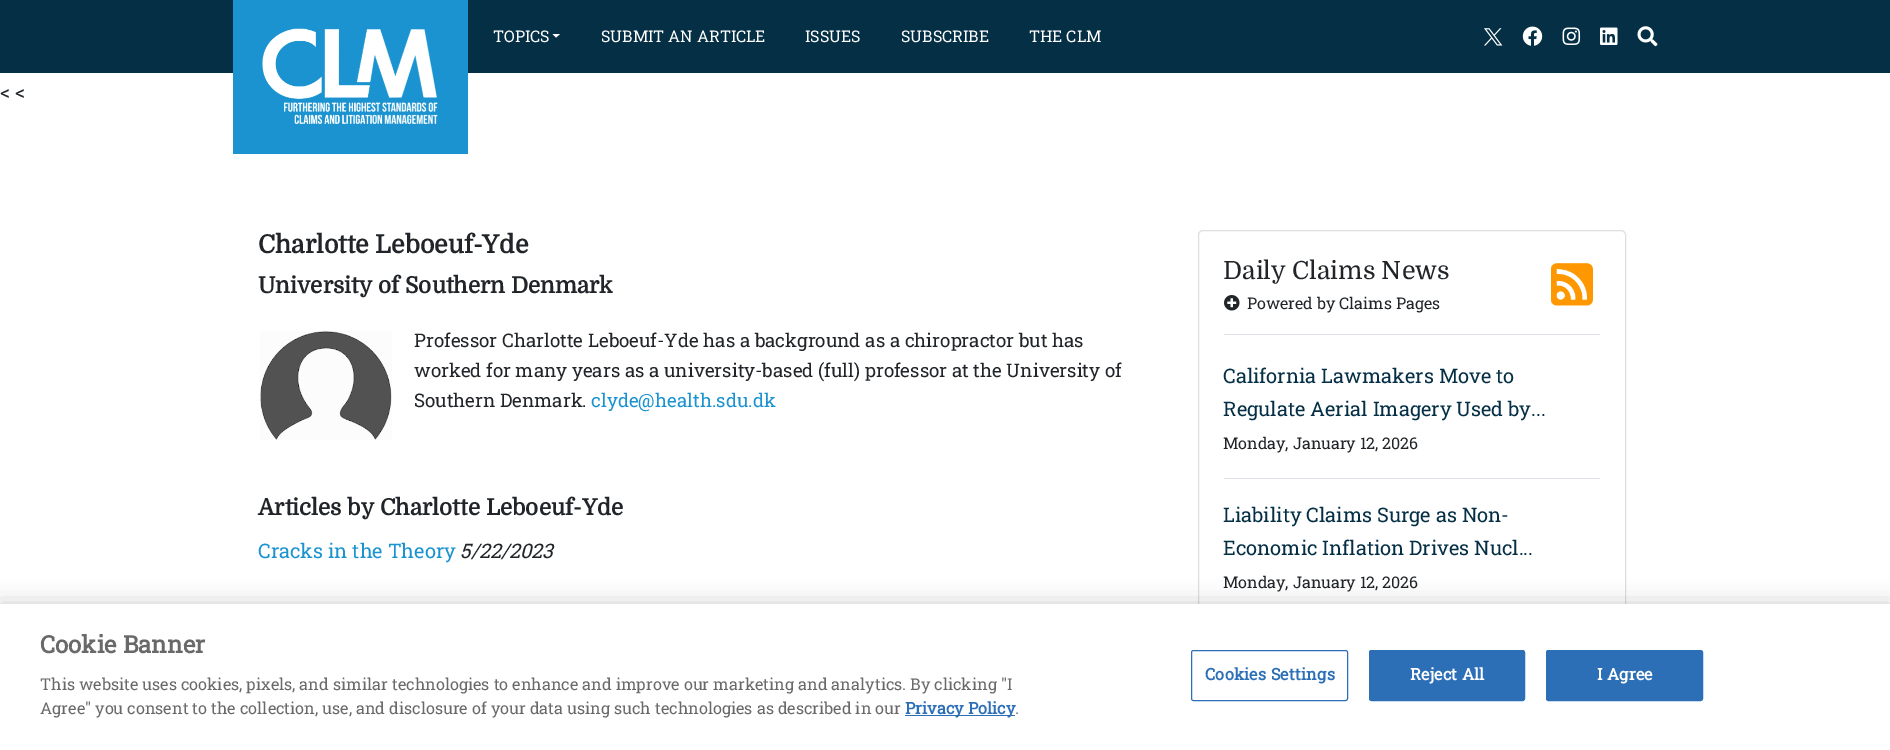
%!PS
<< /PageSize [1890 750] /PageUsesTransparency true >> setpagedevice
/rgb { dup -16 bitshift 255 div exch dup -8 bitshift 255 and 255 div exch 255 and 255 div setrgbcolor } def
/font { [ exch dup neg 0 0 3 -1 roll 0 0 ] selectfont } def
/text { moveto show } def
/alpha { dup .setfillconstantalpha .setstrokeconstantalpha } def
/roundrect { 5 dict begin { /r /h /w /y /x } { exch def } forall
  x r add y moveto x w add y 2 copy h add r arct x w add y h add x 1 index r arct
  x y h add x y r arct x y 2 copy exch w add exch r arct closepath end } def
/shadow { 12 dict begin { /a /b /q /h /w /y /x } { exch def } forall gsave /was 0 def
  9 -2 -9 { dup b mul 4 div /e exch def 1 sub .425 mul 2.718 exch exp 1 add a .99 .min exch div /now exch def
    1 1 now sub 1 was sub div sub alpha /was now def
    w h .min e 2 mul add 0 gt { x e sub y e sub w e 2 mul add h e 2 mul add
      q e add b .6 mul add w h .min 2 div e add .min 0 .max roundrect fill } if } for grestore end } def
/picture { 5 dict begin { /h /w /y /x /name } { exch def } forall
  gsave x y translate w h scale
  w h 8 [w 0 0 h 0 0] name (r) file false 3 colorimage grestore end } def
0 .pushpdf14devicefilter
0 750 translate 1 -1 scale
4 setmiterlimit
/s1 { /RobotoSlab-Regular 16 font 16#FFFFFF rgb } def
/s2 { /RobotoSlab-Regular 20 font 16#212529 rgb } def
/s3 { /Domine-Bold 25 font 16#212529 rgb } def
/s4 { /Domine-Bold 22.5 font 16#212529 rgb } def
/s5 { /RobotoSlab-Regular 18.75 font 16#212529 rgb } def
/s6 { /RobotoSlab-Regular 18.75 font 16#1B93D0 rgb } def
/s7 { /RobotoSlab-Regular 20 font 16#1B93D0 rgb } def
/s8 { /RobotoSlab-Italic 20 font 16#212529 rgb } def
/s9 { /Domine-Regular 25 font 16#212529 rgb } def
/s10 { /RobotoSlab-Regular 16 font 16#212529 rgb } def
/s11 { /RobotoSlab-Regular 20 font 16#042F45 rgb } def
/s12 { /RobotoSlab-Bold 24 font 16#696969 rgb } def
/s13 { /RobotoSlab-Regular 16.25 font 16#696969 rgb } def
/s14 { /RobotoSlab-Bold 16.25 font 16#2C6FB7 rgb } def
16#FFFFFF rgb
0 0 1890 750 rectfill
16#042F45 rgb
0 0 1890 73 rectfill
16#1B93D0 rgb
233 0 235 154 rectfill
(pic1.raw) 262 28 176 96 picture
s1
(TOPICS) 493 42 text
552.5 34 moveto 560 34 lineto 556 37.5 lineto closepath fill
(SUBMIT AN ARTICLE) 601 42 text
(ISSUES) 805 42 text
(SUBSCRIBE) 901 42 text
(THE CLM) 1029 42 text
(pic2.raw) 1484 28 19 18 picture
(pic3.raw) 1522 26 21 20 picture
(pic4.raw) 1562 27 19 18 picture
(pic5.raw) 1600 27 18 18 picture
(pic6.raw) 1637 26 21 21 picture
s2
(< <) 0 99 text
s3
(Charlotte Leboeuf-Yde) 258 253 text
s4
(University of Southern Denmark) 258 293 text
(pic7.raw) 260 331 132 109 picture
s5
(Professor Charlotte Leboeuf-Yde has a background as a chiropractor but has) 414 347 text
(worked for many years as a university-based \(full\) professor at the University of) 414 377 text
(Southern Denmark.) 414 407 text
s6
(clyde@health.sdu.dk) 591 407 text
s4
(Articles by Charlotte Leboeuf-Yde) 258 515 text
s7
(Cracks in the Theory) 258 558 text
s8
(5/22/2023) 460 558 text
16#DFDFDF rgb
1198.5 230.5 427 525 4.5 roundrect stroke
16#DEE2E6 rgb
1224 334 376 1 rectfill
s9
(Daily Claims News) 1223 279 text
(pic8.raw) 1551 263 42 43 picture
(pic9.raw) 1224 295 16 16 picture
s10
(Powered by Claims Pages) 1247 309 text
16#DEE2E6 rgb
1224 478 376 1 rectfill
s11
(California Lawmakers Move to) 1223 383 text
(Regulate Aerial Imagery Used by...) 1223 416 text
s10
(Monday, January 12, 2026) 1223 449 text
s11
(Liability Claims Surge as Non-) 1223 522 text
(Economic Inflation Drives Nucl...) 1223 555 text
s10
(Monday, January 12, 2026) 1223 588 text
16#000000 rgb
0 604 1890 146 0 11 0.2 shadow
16#FFFFFF rgb
0 604 1890 146 rectfill
s12
(Cookie Banner) 40 653 text
s13
(This website uses cookies, pixels, and similar technologies to enhance and improve our marketing and analytics. By clicking "I) 40 690 text
(Agree" you consent to the collection, use, and disclosure of your data using such technologies as described in our) 40 714 text
16#2C6FB7 rgb
905 715 110 1 rectfill
s14
(Privacy Policy) 905 714 text
s13
(.) 1015 714 text
16#2C6FB7 rgb
1191.5 650.5 156 50 2 roundrect stroke
/RobotoSlab-Bold 16.25 font
1205 680 moveto 0.2 0 (Cookies Settings) ashow
1369.5 650.5 155 50 2 roundrect gsave fill grestore
stroke
16#FFFFFF rgb
1410 680 moveto 0.2 0 (Reject All) ashow
16#2C6FB7 rgb
1546.5 650.5 156 50 2 roundrect gsave fill grestore
stroke
16#FFFFFF rgb
1597 680 moveto 0.2 0 (I Agree) ashow
.poppdf14devicefilter showpage
